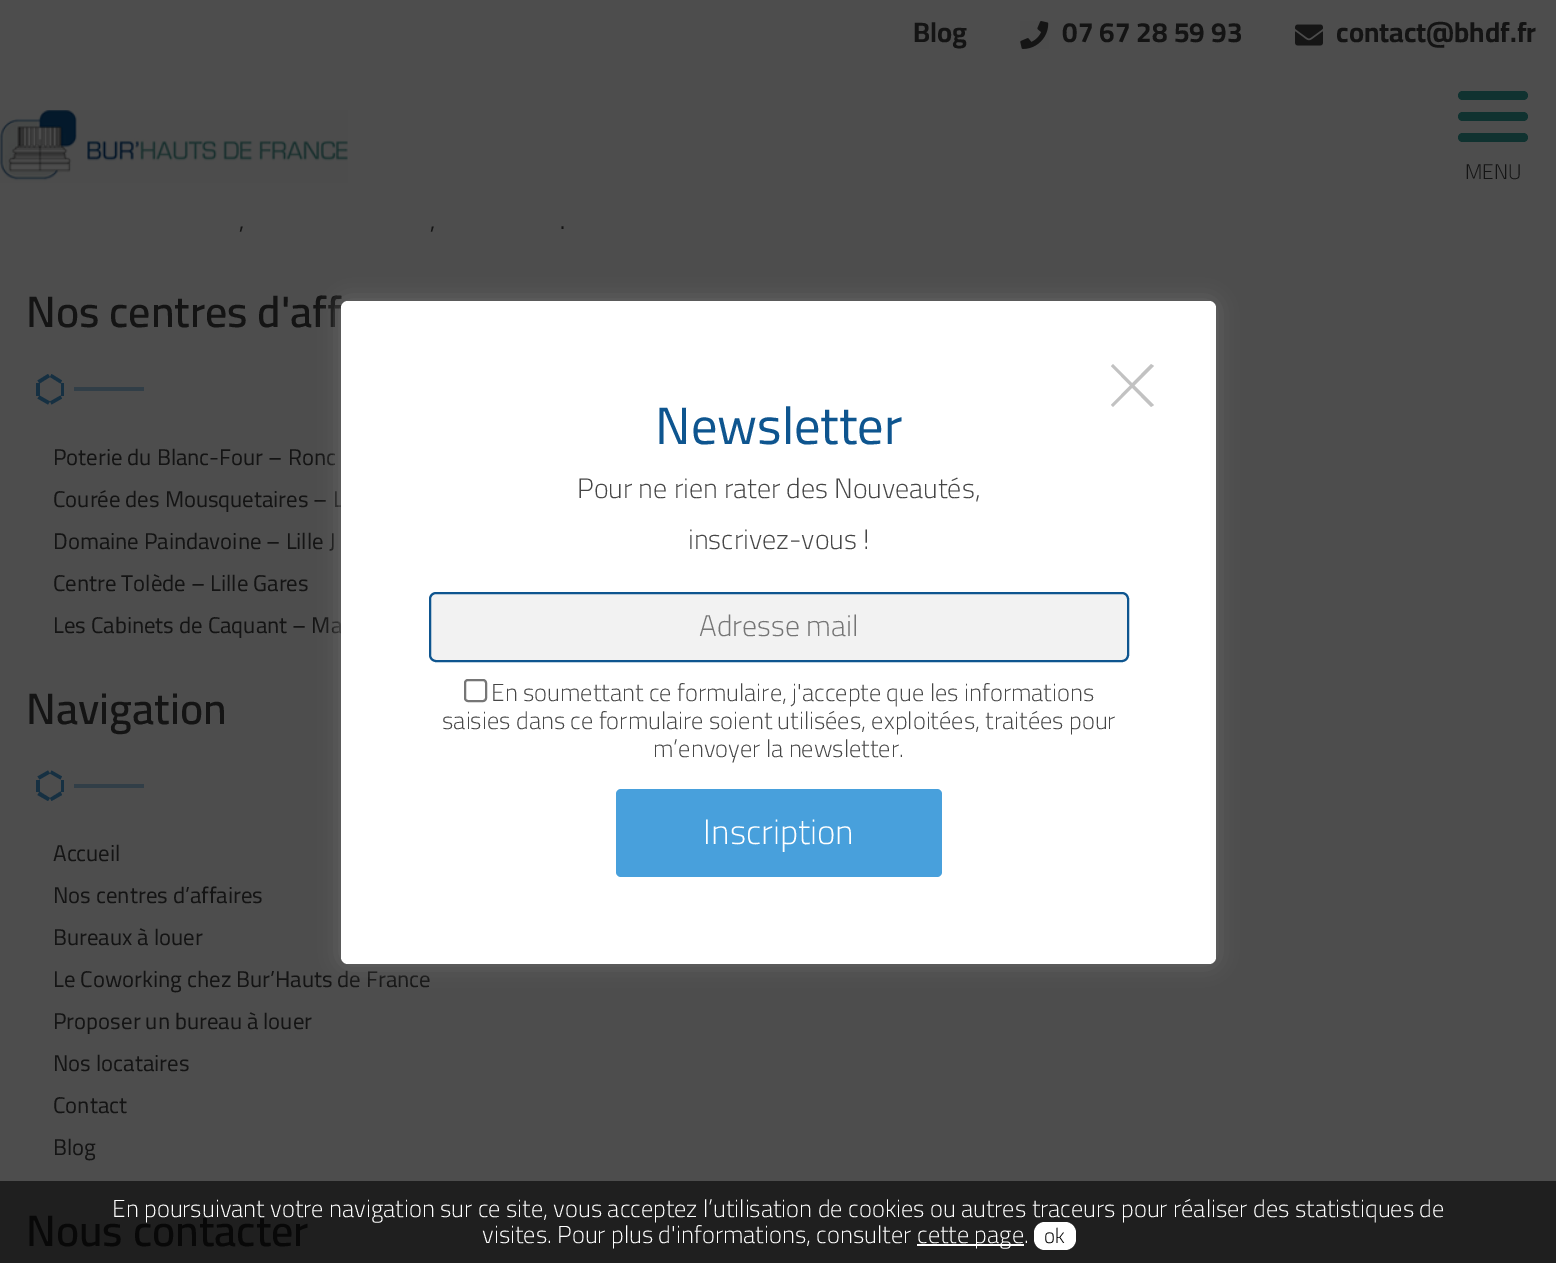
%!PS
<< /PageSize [1556 1263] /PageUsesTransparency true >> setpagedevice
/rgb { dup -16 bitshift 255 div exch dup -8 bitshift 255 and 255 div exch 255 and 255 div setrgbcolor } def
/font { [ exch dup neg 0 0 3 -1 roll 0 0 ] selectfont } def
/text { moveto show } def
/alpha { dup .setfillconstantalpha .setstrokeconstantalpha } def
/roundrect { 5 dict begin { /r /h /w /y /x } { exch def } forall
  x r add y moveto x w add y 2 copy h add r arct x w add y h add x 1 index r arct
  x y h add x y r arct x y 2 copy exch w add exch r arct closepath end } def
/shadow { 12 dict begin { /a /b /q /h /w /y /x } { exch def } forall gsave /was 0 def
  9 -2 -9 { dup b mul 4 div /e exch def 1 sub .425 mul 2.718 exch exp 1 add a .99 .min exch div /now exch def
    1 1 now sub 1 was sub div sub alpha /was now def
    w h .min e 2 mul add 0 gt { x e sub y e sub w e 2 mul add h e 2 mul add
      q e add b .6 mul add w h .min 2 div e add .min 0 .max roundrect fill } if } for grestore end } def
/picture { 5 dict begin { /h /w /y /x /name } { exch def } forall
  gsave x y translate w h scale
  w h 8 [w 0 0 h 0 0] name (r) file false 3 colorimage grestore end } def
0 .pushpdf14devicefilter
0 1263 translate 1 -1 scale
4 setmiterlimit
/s1 { /Cairo-Bold 28 font 16#141414 rgb } def
/s2 { /Cairo-Light 21 font 16#141414 rgb } def
/s3 { /Cairo-Regular 22.75 font 16#141414 rgb } def
/s4 { /Cairo-SemiBold 43.75 font 16#141414 rgb } def
/s5 { /Cairo-SemiBold 43.75 font 16#080808 rgb } def
/s6 { /Cairo-Regular 52.5 font 16#0E558F rgb } def
/s7 { /Cairo-Light 28 font 16#464646 rgb } def
/s8 { /Cairo-Light 29.75 font 16#757575 rgb } def
/s9 { /Cairo-Light 24.5 font 16#464646 rgb } def
/s10 { /Cairo-Light 35 font 16#FFFFFF rgb } def
/s11 { /Cairo-Light 24.5 font 16#FFFFFF rgb } def
/s12 { /Cairo-Light 21 font 16#000000 rgb } def
16#4D4D4D rgb
0 0 1556 1263 rectfill
16#1F1F1F rgb
0 1181 1556 82 rectfill
s1
(Blog) 913 42 text
(pic1.raw) 1020 21 29 28 picture
(07 67 28 59 93) 1062 42 text
(pic2.raw) 1295 24 28 22 picture
(contact@bhdf.fr) 1336 42 text
(pic3.raw) 0 110 348 73 picture
16#103230 rgb
1458 112 70 9 4.5 roundrect fill
1458 91 70 9 4.5 roundrect fill
1458 133 70 9 4.5 roundrect fill
s2
(MENU) 1465 179 text
s3
(,) 239 229 text
(,) 430 229 text
(.) 560 229 text
s4
(Nos centres d'aff) 26 327 text
16#163042 rgb
61 383 3 13 rectfill
36 383 4 13 rectfill
62 398.5 moveto 51.5 404.5 lineto 50 401.5 lineto 60.5 395.5 lineto closepath 50 377 moveto 39.5 383.5 lineto 37.5 380.5 lineto 48 374 lineto closepath fill
51.5 374 moveto 62 380.5 lineto 60.5 383.5 lineto 50 377 lineto closepath 39.5 395.5 moveto 50 401.5 lineto 48 404.5 lineto 37.5 398.5 lineto closepath fill
16#313E47 rgb
74 387 70 4 rectfill
s3
(Poterie du Blanc-Four – Ronc) 53 465 text
(Courée des Mousquetaires – L) 53 507 text
(Domaine Paindavoine – Lille J) 53 549 text
(Centre Tolède – Lille Gares) 53 591 text
(Les Cabinets de Caquant – Ma) 53 633 text
s4
(Navigation) 26 724 text
16#163042 rgb
61 780 3 12 rectfill
36 780 4 12 rectfill
62 795 moveto 51.5 801 lineto 50 798 lineto 60.5 791.5 lineto closepath 50 773.5 moveto 39.5 779.5 lineto 37.5 776.5 lineto 48 770.5 lineto closepath fill
51.5 770.5 moveto 62 776.5 lineto 60.5 779.5 lineto 50 773.5 lineto closepath 39.5 791.5 moveto 50 798 lineto 48 801 lineto 37.5 795 lineto closepath fill
16#313E47 rgb
74 784 70 4 rectfill
s3
(Accueil) 53 861 text
(Nos centres d’affaires) 53 903 text
(Bureaux à louer) 53 945 text
(Le Coworking chez Bur’Hauts de France) 53 987 text
(Proposer un bureau à louer) 53 1029 text
(Nos locataires) 53 1071 text
(Contact) 53 1113 text
(Blog) 53 1155 text
s5
(Nous contacter) 26 1246 text
16#666666 rgb
341 301 875 663 7 10.5 1 shadow
16#FFFFFF rgb
341 301 875 663 7 roundrect fill
16#C2C2C2 rgb
1151 364 moveto 1154 366 lineto 1113 407 lineto 1111 405 lineto closepath fill
1111 366 moveto 1113 364 lineto 1154 405 lineto 1151 407 lineto closepath fill
s6
(Newsletter) 655 444 text
s7
(Pour ne rien rater des Nouveautés,) 577 498 text
(inscrivez-vous !) 688 549 text
16#F2F2F2 rgb
430 593 698 68 6 roundrect gsave fill grestore
16#0E558F rgb
2 setlinewidth
stroke
s8
(Adresse mail) 699 636 text
16#767676 rgb
465 680 21 21 3 roundrect stroke
s9
(En soumettant ce formulaire, j'accepte que les informations) 491 701 text
(saisies dans ce formulaire soient utilisées, exploitées, traitées pour) 442 729 text
(m’envoyer la newsletter.) 653 757 text
16#48A0DC rgb
616 789 326 88 5 roundrect fill
s10
(Inscription) 703 844 text
s11
(En poursuivant votre navigation sur ce site, vous acceptez l’utilisation de cookies ou autres traceurs pour réaliser des statistiques de) 112 1217 text
(visites. Pour plus d'informations, consulter) 482 1243 text
917 1244 107 2 rectfill
(cette page.) 917 1243 text
1034 1222 42 28 11 roundrect fill
s12
(ok) 1044 1243 text
.poppdf14devicefilter showpage
